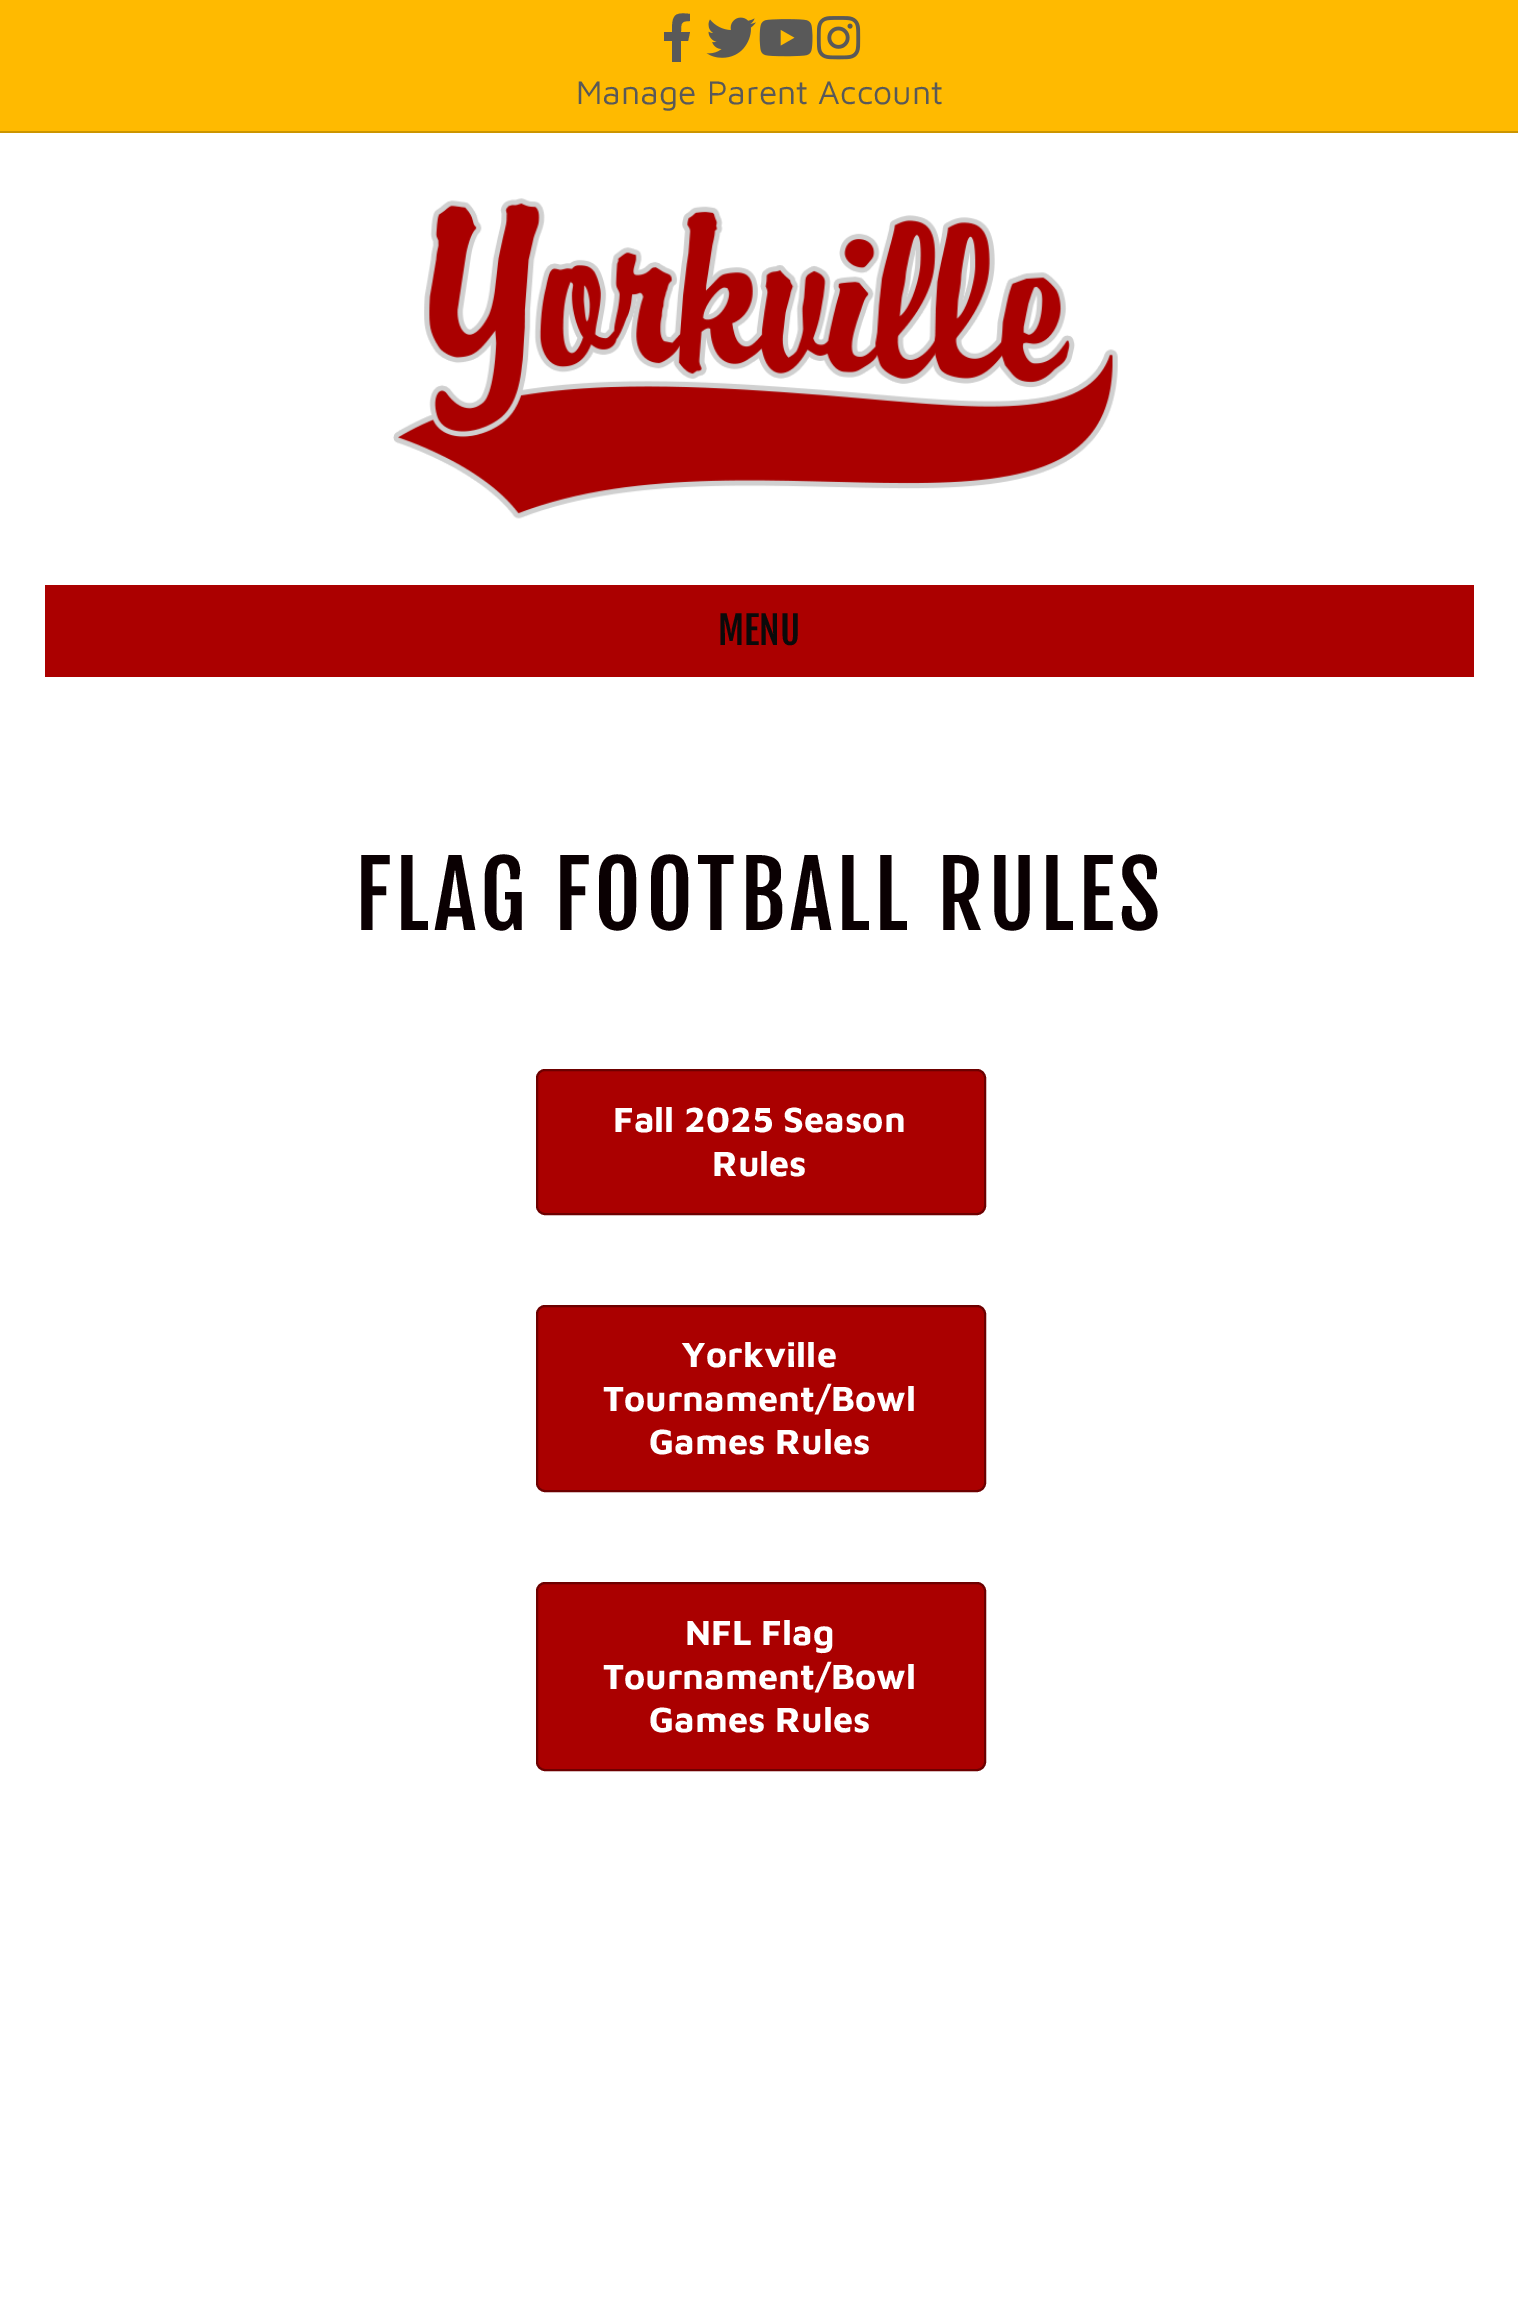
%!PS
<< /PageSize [1518 2300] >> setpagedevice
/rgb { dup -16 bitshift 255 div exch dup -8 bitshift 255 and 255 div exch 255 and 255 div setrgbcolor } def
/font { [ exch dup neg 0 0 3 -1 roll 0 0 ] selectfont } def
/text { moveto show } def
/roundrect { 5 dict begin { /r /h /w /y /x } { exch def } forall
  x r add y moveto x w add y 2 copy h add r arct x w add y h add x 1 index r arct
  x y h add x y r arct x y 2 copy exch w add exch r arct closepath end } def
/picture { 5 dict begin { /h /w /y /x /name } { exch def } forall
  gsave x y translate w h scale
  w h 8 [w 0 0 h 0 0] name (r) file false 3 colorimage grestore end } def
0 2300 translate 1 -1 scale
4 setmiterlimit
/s1 { /MavenPro-Regular 33.75 font 16#595959 rgb } def
/s2 { /FjallaOne-Regular 38 font 16#0A0A0A rgb } def
/s3 { /MavenPro-Bold 36 font 16#FFFFFF rgb } def
16#FFFFFF rgb
0 0 1518 2300 rectfill
16#FFBA00 rgb
0 0 1518 131 rectfill
16#CC9500 rgb
0 131 1518 2 rectfill
16#595959 rgb
688 41 moveto 681 41 lineto 681 62 lineto 672 62 lineto 672 41 lineto 664 41 lineto 664 32 lineto 672 32 lineto 672 15 674 12 690 14 curveto 690 21 lineto 681 21 681 23 681 32 curveto 690 32 lineto closepath fill
(pic1.raw) 706 17 50 41 picture
(pic2.raw) 759 19 54 38 picture
(pic3.raw) 816 16 45 44 picture
s1
(Manage Parent Account) 576 104 text
(pic4.raw) 393 198 725 321 picture
16#AB0000 rgb
45 585 1429 92 rectfill
s2
(MENU) 718 645 text
/FjallaOne-Regular 90 font
16#0A0002 rgb
355 930 moveto 4.5 0 (FLAG FOOTBALL RULES) ashow
16#AA0000 rgb
537 1070 448 144 8 roundrect gsave fill grestore
16#6D0000 rgb
2 setlinewidth
stroke
s3
(Fall 2025 Season) 613 1132 text
(Rules) 712 1176 text
16#AA0000 rgb
537 1306 448 185 8 roundrect gsave fill grestore
16#6D0000 rgb
stroke
s3
(Yorkville) 681 1367 text
(Tournament/Bowl) 603 1411 text
(Games Rules) 649 1454 text
16#AA0000 rgb
537 1583 448 187 8 roundrect gsave fill grestore
16#6D0000 rgb
stroke
s3
(NFL Flag) 685 1645 text
(Tournament/Bowl) 603 1689 text
(Games Rules) 649 1732 text
showpage
